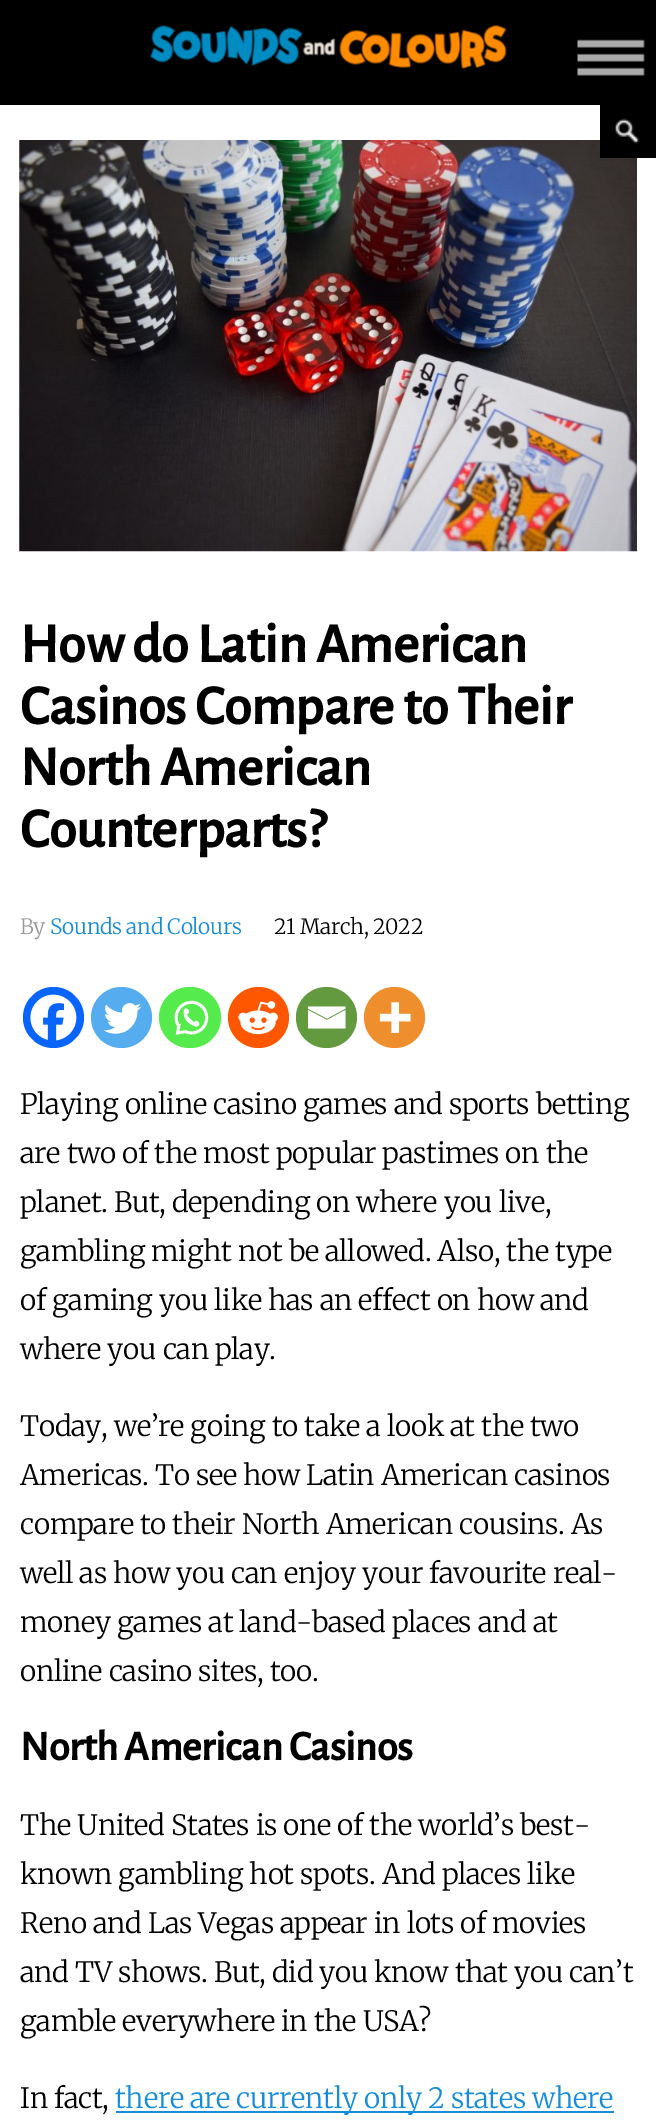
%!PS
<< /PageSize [656 2123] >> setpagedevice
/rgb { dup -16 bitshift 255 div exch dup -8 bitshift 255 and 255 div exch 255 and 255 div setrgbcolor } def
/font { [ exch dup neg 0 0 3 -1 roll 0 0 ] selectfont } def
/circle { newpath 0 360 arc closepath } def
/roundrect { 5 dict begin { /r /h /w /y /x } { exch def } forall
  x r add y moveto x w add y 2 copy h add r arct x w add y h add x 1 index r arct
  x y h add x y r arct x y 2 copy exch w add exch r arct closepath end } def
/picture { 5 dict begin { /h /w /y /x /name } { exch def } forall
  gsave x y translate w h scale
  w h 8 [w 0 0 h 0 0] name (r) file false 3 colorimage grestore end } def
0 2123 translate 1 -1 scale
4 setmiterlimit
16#FFFFFF rgb
0 0 656 2123 rectfill
16#000000 rgb
0 0 656 105 rectfill
(pic1.raw) 150 25 357 44 picture
(pic2.raw) 577 39 68 37 picture
(pic4.raw) 19 140 618 412 picture
600 105 56 53 rectfill
(pic3.raw) 614 118 26 26 picture
/AlegreyaSans-Bold 56 font
20 662 moveto -0.3 0 (How do Latin American) ashow
20 724 moveto -0.3 0 (Casinos Compare to Their) ashow
20 785 moveto -0.3 0 (North American) ashow
20 847 moveto -0.3 0 (Counterparts?) ashow
/Merriweather-Light 21 font
16#989898 rgb
20 934 moveto -0.3 0 (By) ashow
16#168DD9 rgb
50 934 moveto -0.3 0 (Sounds and Colours) ashow
16#000000 rgb
274 934 moveto -0.3 0 (21 March, 2022) ashow
16#0765FE rgb
53.5 1017.5 30.5 circle fill
(pic5.raw) 30 994 47 47 picture
16#55ACEE rgb
121.5 1017.5 30.5 circle fill
(pic6.raw) 103 1003 39 31 picture
16#55EB4C rgb
159 987 62 61 30.5 roundrect fill
(pic7.raw) 174 1000 35 35 picture
16#FF5700 rgb
258.5 1017.5 30.5 circle fill
(pic8.raw) 238 1001 40 34 picture
16#649A3F rgb
326.5 1017.5 30.5 circle fill
16#FFFFFF rgb
306.5 1006.5 moveto 345.5 1006.5 lineto 345.5 1008.5 lineto 327 1018.5 lineto 308 1008.5 lineto 308 1006.5 lineto 308 1010 moveto 327 1020 lineto 345.5 1010 lineto 345.5 1028.5 lineto 308 1028.5 lineto 308 1010 lineto fill
16#EE8E2D rgb
394.5 1017.5 30.5 circle fill
(pic9.raw) 379 1002 32 31 picture
/Merriweather-Light 28 font
16#000000 rgb
20 1114 moveto -0.3 0 (Playing online casino games and sports betting) ashow
20 1163 moveto -0.3 0 (are two of the most popular pastimes on the) ashow
20 1212 moveto -0.3 0 (planet. But, depending on where you live,) ashow
20 1261 moveto -0.3 0 (gambling might not be allowed. Also, the type) ashow
20 1310 moveto -0.3 0 (of gaming you like has an effect on how and) ashow
20 1359 moveto -0.3 0 (where you can play.) ashow
20 1436 moveto -0.3 0 (Today, we’re going to take a look at the two) ashow
20 1485 moveto -0.3 0 (Americas. To see how Latin American casinos) ashow
20 1534 moveto -0.3 0 (compare to their North American cousins. As) ashow
20 1583 moveto -0.3 0 (well as how you can enjoy your favourite real-) ashow
20 1632 moveto -0.3 0 (money games at land-based places and at) ashow
20 1681 moveto -0.3 0 (online casino sites, too.) ashow
/AlegreyaSans-Bold 42 font
20 1760 moveto -0.3 0 (North American Casinos) ashow
/Merriweather-Light 28 font
20 1835 moveto -0.3 0 (The United States is one of the world’s best-) ashow
20 1884 moveto -0.3 0 (known gambling hot spots. And places like) ashow
20 1933 moveto -0.3 0 (Reno and Las Vegas appear in lots of movies) ashow
20 1982 moveto -0.3 0 (and TV shows. But, did you know that you can’t) ashow
20 2031 moveto -0.3 0 (gamble everywhere in the USA?) ashow
20 2108 moveto -0.3 0 (In fact,) ashow
16#168DD9 rgb
116 2111 498 2 rectfill
115 2108 moveto -0.3 0 (there are currently only 2 states where) ashow
showpage
